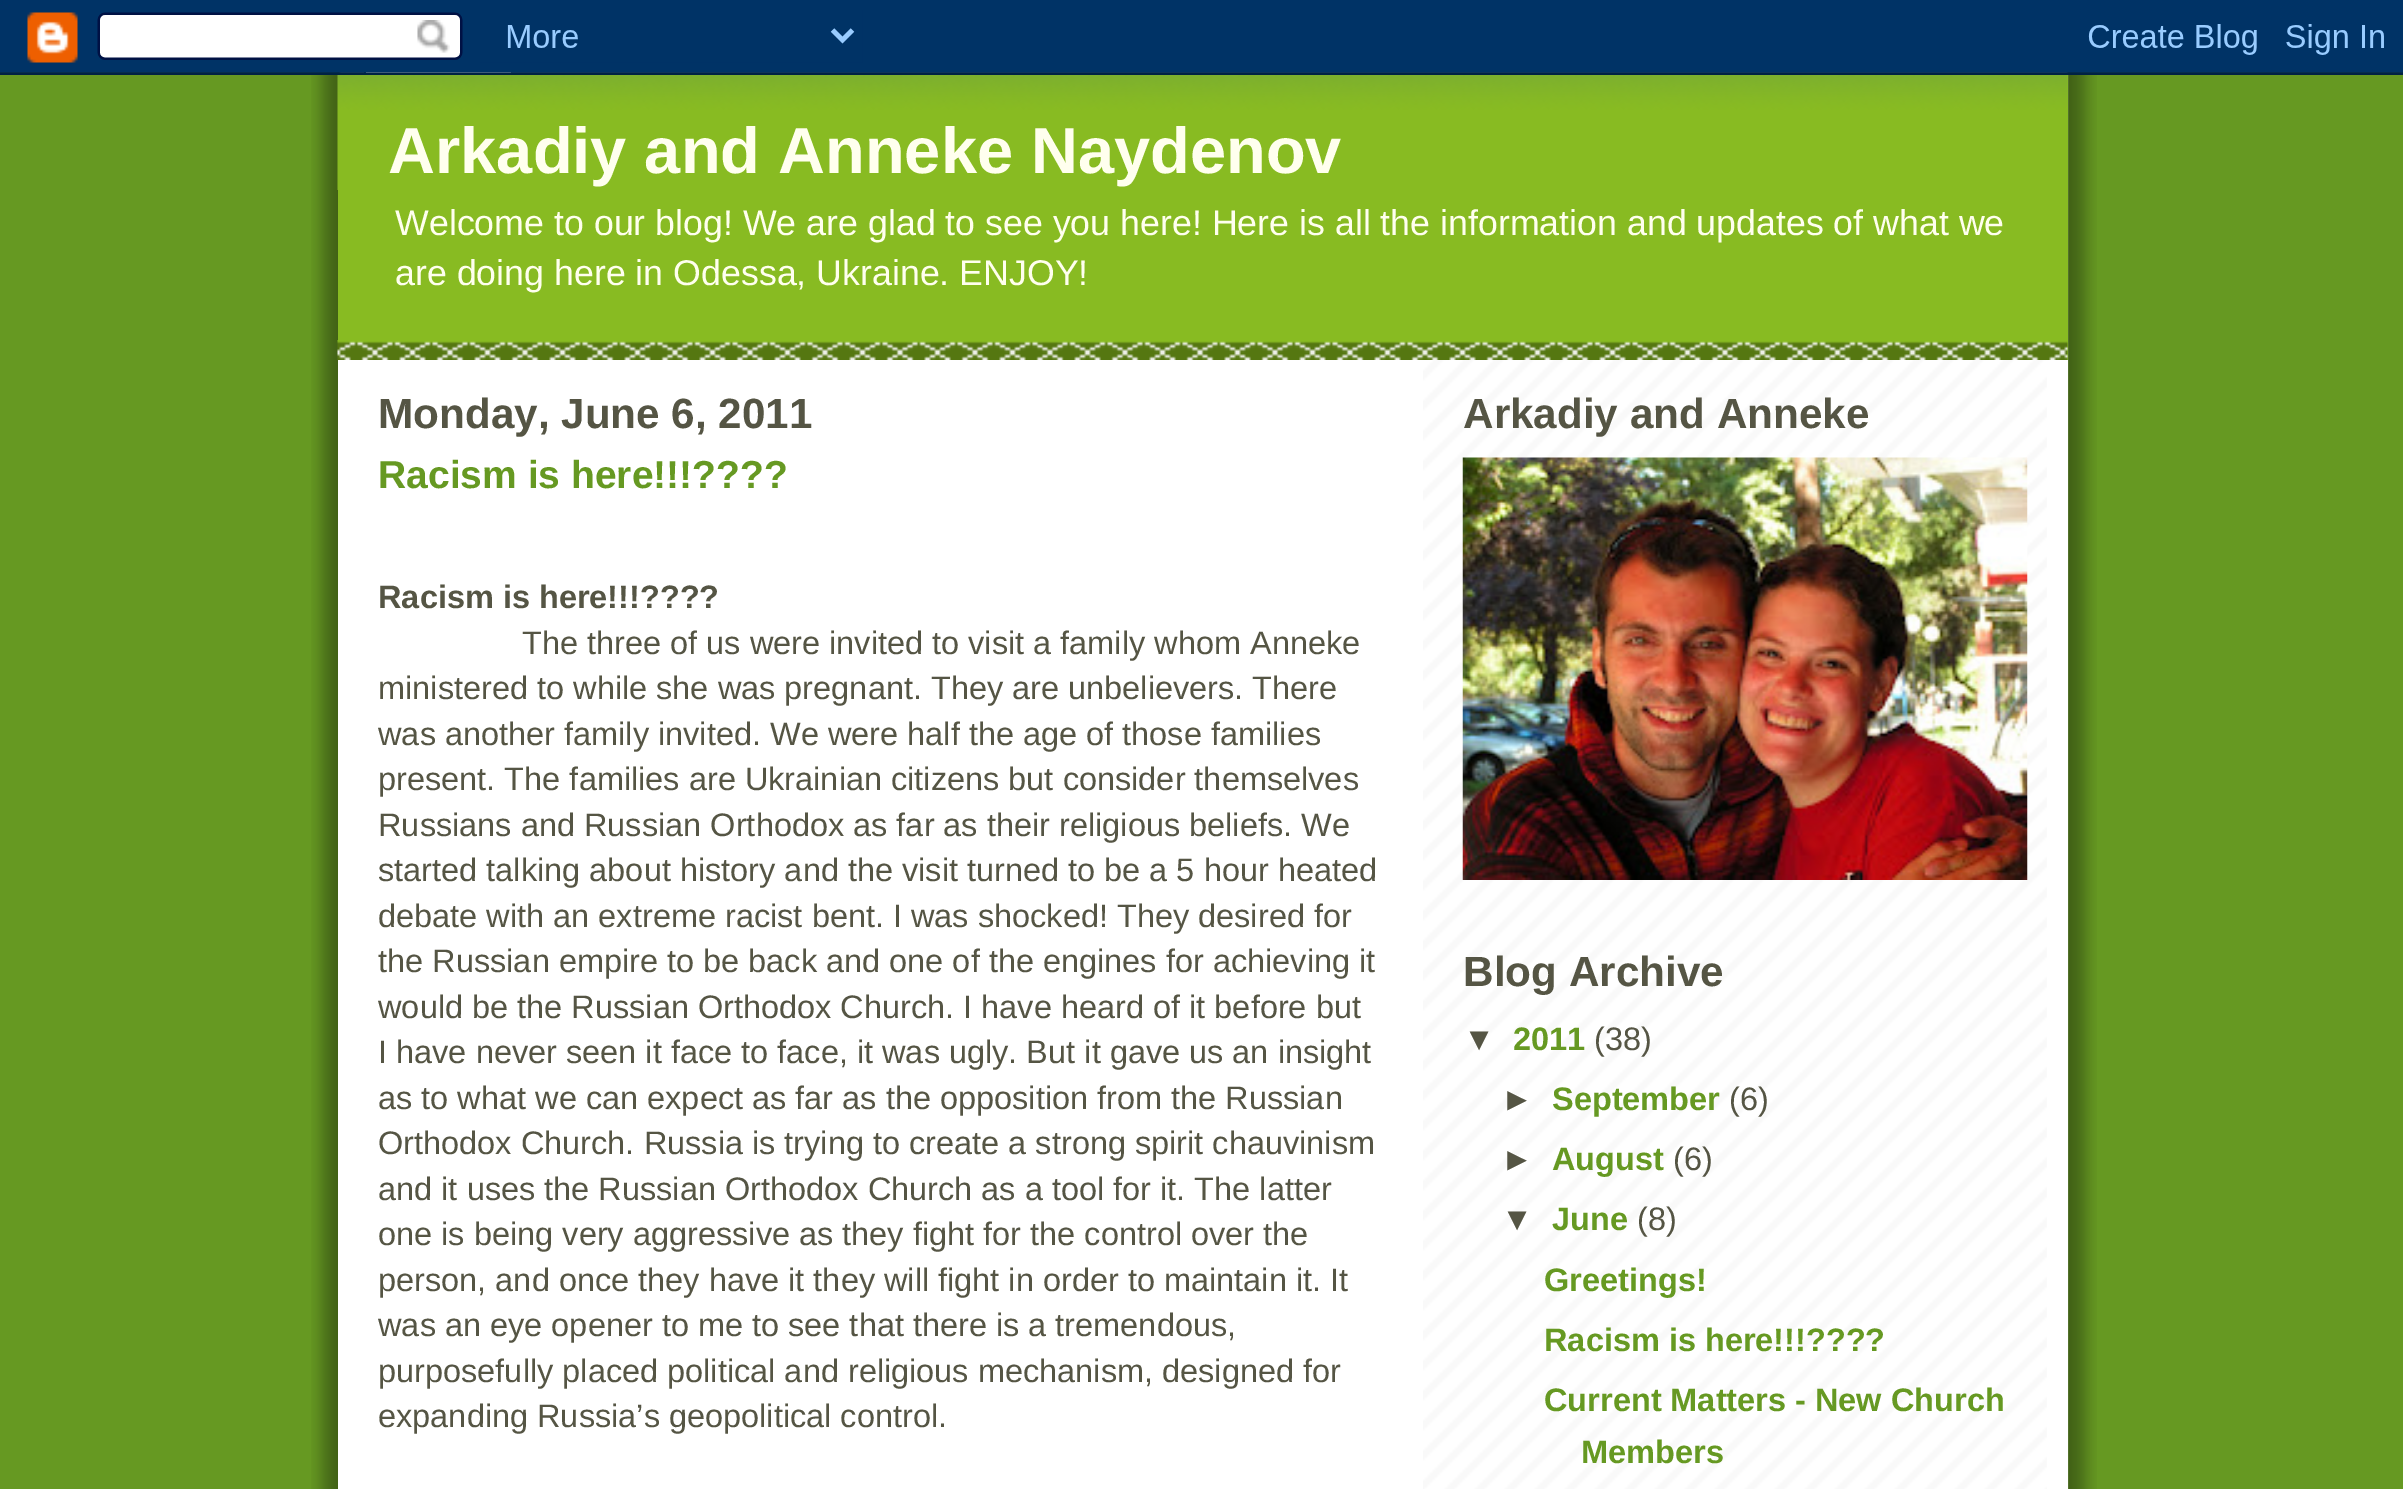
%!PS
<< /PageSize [2403 1489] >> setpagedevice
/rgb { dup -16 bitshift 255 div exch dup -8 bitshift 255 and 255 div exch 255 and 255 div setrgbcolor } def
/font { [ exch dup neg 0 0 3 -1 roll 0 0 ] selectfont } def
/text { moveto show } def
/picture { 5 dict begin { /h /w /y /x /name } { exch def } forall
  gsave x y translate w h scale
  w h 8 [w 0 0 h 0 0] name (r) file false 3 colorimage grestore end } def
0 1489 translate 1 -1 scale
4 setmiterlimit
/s1 { /LiberationSans-Bold 65 font 16#FFFFEE rgb } def
/s2 { /LiberationSans-Regular 35.75 font 16#FFFFEE rgb } def
/s3 { /LiberationSans-Bold 42.25 font 16#555544 rgb } def
/s4 { /LiberationSans-Bold 39 font 16#669922 rgb } def
/s5 { /LiberationSans-Bold 32.5 font 16#555544 rgb } def
/s6 { /LiberationSans-Regular 32.5 font 16#555544 rgb } def
/s7 { /LiberationSans-Bold 32.5 font 16#669922 rgb } def
16#669922 rgb
0 0 2403 1489 rectfill
(pic1.raw) 311 72 1786 1417 picture
(pic2.raw) 0 0 2403 75 picture
16#FFFFFF rgb
338 360 1730 1129 rectfill
(pic3.raw) 1423 360 624 1129 picture
16#88BB22 rgb
338 75 1730 285 rectfill
(pic4.raw) 337 340 1731 20 picture
(pic5.raw) 337 75 1731 115 picture
s1
(Arkadiy and Anneke Naydenov) 388 173 text
s2
(Welcome to our blog! We are glad to see you here! Here is all the information and updates of what we) 395 235 text
(are doing here in Odessa, Ukraine. ENJOY!) 395 285 text
s3
(Monday, June 6, 2011) 378 428 text
s4
(Racism is here!!!????) 378 488 text
s5
(Racism is here!!!????) 378 608 text
s6
(The three of us were invited to visit a family whom Anneke) 522 654 text
(ministered to while she was pregnant. They are unbelievers. There) 378 699 text
gsave
378 360 1000 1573 rectclip
(was another family invited. We were half the age of those families) 378 745 text
grestore
(present. The families are Ukrainian citizens but consider themselves) 378 790 text
(Russians and Russian Orthodox as far as their religious beliefs. We) 378 836 text
(started talking about history and the visit turned to be a 5 hour heated) 378 881 text
(debate with an extreme racist bent. I was shocked! They desired for) 378 927 text
(the Russian empire to be back and one of the engines for achieving it) 378 972 text
gsave
378 360 1000 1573 rectclip
(would be the Russian Orthodox Church. I have heard of it before but) 378 1018 text
grestore
(I have never seen it face to face, it was ugly. But it gave us an insight) 378 1063 text
(as to what we can expect as far as the opposition from the Russian) 378 1109 text
(Orthodox Church. Russia is trying to create a strong spirit chauvinism) 378 1154 text
(and it uses the Russian Orthodox Church as a tool for it. The latter) 378 1200 text
(one is being very aggressive as they fight for the control over the) 378 1245 text
(person, and once they have it they will fight in order to maintain it. It) 378 1291 text
gsave
378 360 1000 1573 rectclip
(was an eye opener to me to see that there is a tremendous,) 378 1336 text
grestore
(purposefully placed political and religious mechanism, designed for) 378 1382 text
(expanding Russia’s geopolitical control.) 378 1427 text
s3
(Arkadiy and Anneke) 1463 428 text
(pic6.raw) 1462 457 566 423 picture
(Blog Archive) 1463 986 text
s5
(▼) 1463 1050 text
s7
(2011) 1513 1050 text
s6
(\(38\)) 1594 1050 text
s5
(►) 1501 1110 text
s7
(September) 1552 1110 text
s6
(\(6\)) 1729 1110 text
s5
(►) 1501 1170 text
s7
(August) 1552 1170 text
s6
(\(6\)) 1673 1170 text
s5
(▼) 1501 1230 text
s7
(June) 1552 1230 text
s6
(\(8\)) 1637 1230 text
s7
(Greetings!) 1544 1291 text
(Racism is here!!!????) 1544 1351 text
(Current Matters - New Church) 1544 1411 text
(Members) 1581 1463 text
showpage
